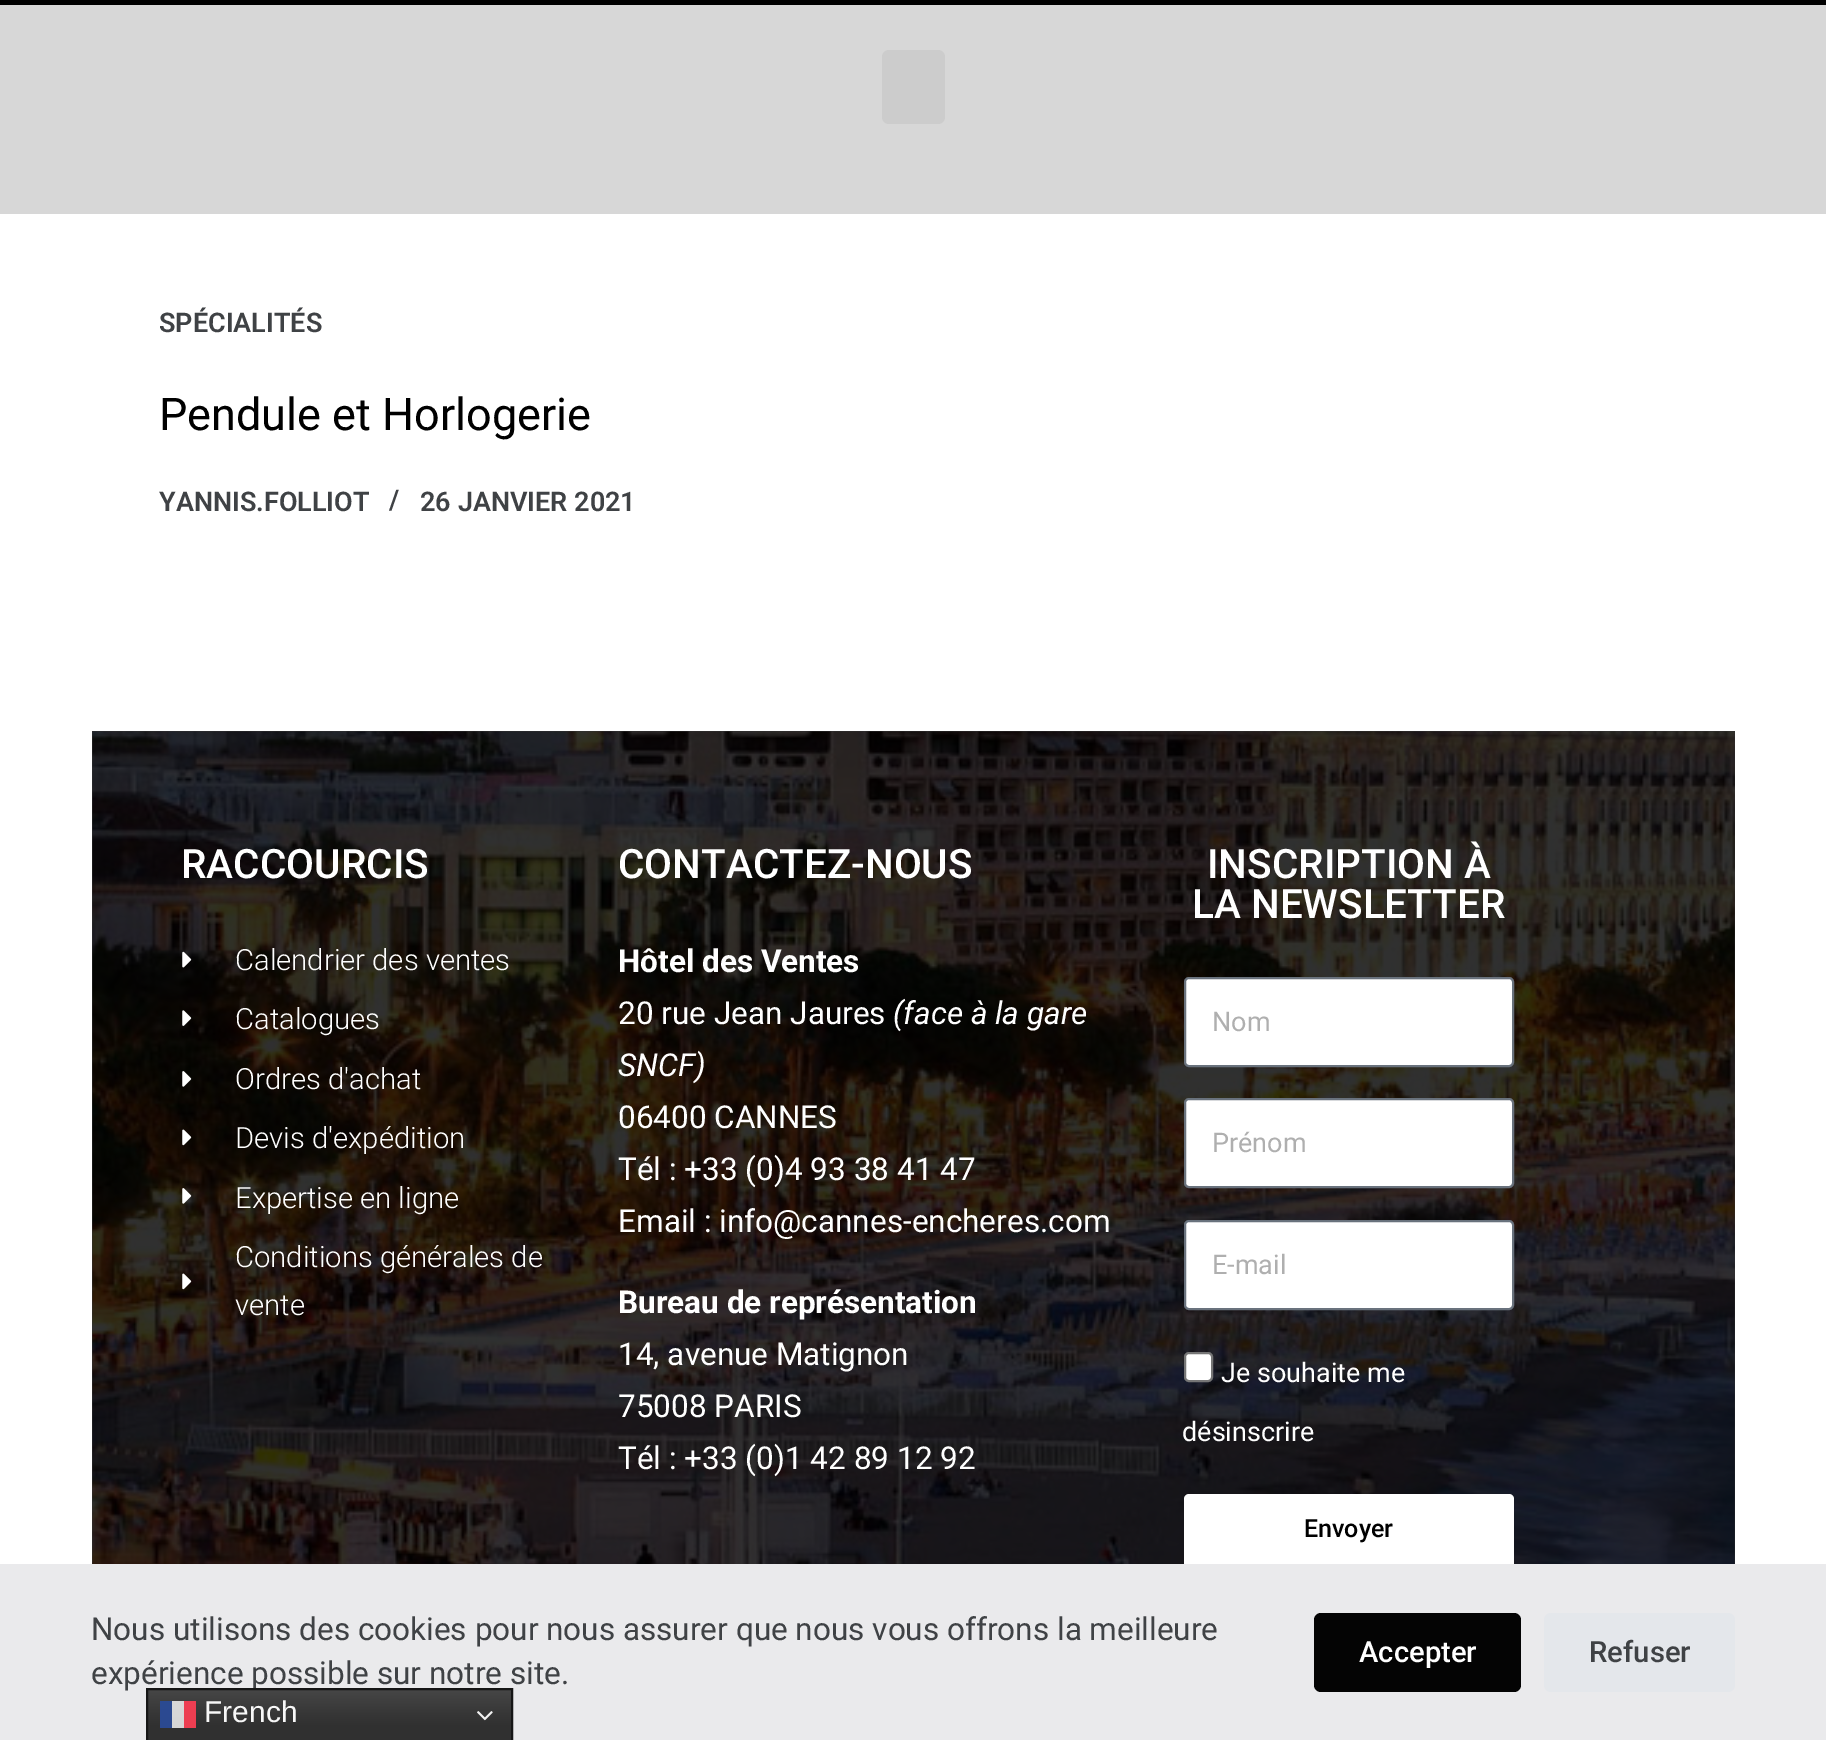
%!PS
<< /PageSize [1826 1740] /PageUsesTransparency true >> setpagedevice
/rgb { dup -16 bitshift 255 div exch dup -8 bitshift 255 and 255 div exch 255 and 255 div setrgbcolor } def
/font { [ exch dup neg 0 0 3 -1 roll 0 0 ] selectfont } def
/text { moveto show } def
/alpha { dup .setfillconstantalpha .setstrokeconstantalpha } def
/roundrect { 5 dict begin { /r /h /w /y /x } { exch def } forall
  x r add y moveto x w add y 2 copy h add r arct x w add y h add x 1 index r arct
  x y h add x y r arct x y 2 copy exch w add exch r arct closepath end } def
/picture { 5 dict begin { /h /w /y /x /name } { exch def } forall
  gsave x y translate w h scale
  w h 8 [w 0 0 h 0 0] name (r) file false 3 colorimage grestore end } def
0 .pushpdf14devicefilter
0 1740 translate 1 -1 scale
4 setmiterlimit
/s1 { /Roboto-SemiBold 27 font 16#3F4245 rgb } def
/s2 { /Roboto-Regular 45 font 16#000000 rgb } def
/s3 { /Roboto-Medium 40.5 font 16#FFFFFF rgb } def
/s4 { /Roboto-Light 29.25 font 16#FFFFFF rgb } def
/s5 { /Roboto-Bold 31.5 font 16#FFFFFF rgb } def
/s6 { /Roboto-Regular 31.5 font 16#FFFFFF rgb } def
/s7 { /Roboto-Italic 31.5 font 16#FFFFFF rgb } def
/s8 { /Roboto-Regular 27 font 16#AFAFAF rgb } def
/s9 { /Roboto-Regular 27 font 16#FFFFFF rgb } def
/s10 { /Roboto-Medium 25 font 16#000000 rgb } def
/s11 { /Roboto-Regular 31.5 font 16#3F4245 rgb } def
/s12 { /Roboto-Medium 29.25 font 16#FFFFFF rgb } def
/s13 { /Roboto-Medium 29.25 font 16#3F4245 rgb } def
/s14 { /LiberationSans-Regular 30 font 16#F7F7F7 rgb } def
16#FFFFFF rgb
0 0 1826 1740 rectfill
16#303030 rgb
92 731 1643 833 rectfill
16#D7D7D7 rgb
0 5 1826 209 rectfill
16#000000 rgb
0 0 1826 5 rectfill
16#CCCCCC rgb
882 50 63 74 7 roundrect fill
s1
(SPÉCIALITÉS) 159 332 text
s2
(Pendule et Horlogerie) 159 430 text
s1
(YANNIS.FOLLIOT) 159 511 text
(/) 389 509 text
(26 JANVIER 2021) 420 511 text
(pic1.raw) 92 731 1643 833 picture
s3
(RACCOURCIS) 181 878 text
(pic2.raw) 182 951 10 17 picture
s4
(Calendrier des ventes) 235 970 text
(pic3.raw) 182 1010 10 16 picture
(Catalogues) 235 1029 text
(pic4.raw) 182 1071 10 16 picture
(Ordres d'achat) 235 1089 text
(pic5.raw) 182 1129 10 17 picture
(Devis d'expédition) 235 1148 text
(pic6.raw) 182 1188 10 16 picture
(Expertise en ligne) 235 1208 text
(pic7.raw) 182 1273 10 17 picture
(Conditions générales de) 235 1267 text
(vente) 235 1315 text
s3
(CONTACTEZ-NOUS) 618 878 text
s5
(Hôtel des Ventes) 618 972 text
s6
(20 rue Jean Jaures) 618 1024 text
s7
(\(face à la gare) 893 1024 text
(SNCF\)) 618 1076 text
s6
(06400 CANNES) 618 1128 text
(Tél : +33 \(0\)4 93 38 41 47) 618 1180 text
(Email : info@cannes-encheres.com) 618 1232 text
s5
(Bureau de représentation) 618 1313 text
s6
(14, avenue Matignon) 618 1365 text
(75008 PARIS) 618 1417 text
(Tél : +33 \(0\)1 42 89 12 92) 618 1469 text
s3
(INSCRIPTION À) 1207 878 text
(LA NEWSLETTER) 1192 918 text
1185 978 328 88 4 roundrect gsave fill grestore
16#69727D rgb
2 setlinewidth
stroke
s8
(Nom) 1212 1031 text
16#FFFFFF rgb
1185 1099 328 88 4 roundrect gsave fill grestore
16#69727D rgb
stroke
s8
(Prénom) 1212 1152 text
16#FFFFFF rgb
1185 1221 328 88 4 roundrect gsave fill grestore
16#69727D rgb
stroke
s8
(E-mail) 1212 1274 text
16#FFFFFF rgb
1185 1353 27 28 4 roundrect gsave fill grestore
16#767676 rgb
stroke
s9
(Je souhaite me) 1221 1382 text
(désinscrire) 1182 1441 text
1184 1494 330 74 5 roundrect fill
s10
(Envoyer) 1304 1537 text
16#EAEAEC rgb
0 1564 1826 176 rectfill
s11
(Nous utilisons des cookies pour nous assurer que nous vous offrons la meilleure) 91 1640 text
(expérience possible sur notre site.) 91 1684 text
16#040404 rgb
1314 1613 207 79 7 roundrect fill
s12
(Accepter) 1359 1662 text
16#E4E7EB rgb
1544 1613 191 79 7 roundrect fill
s13
(Refuser) 1589 1662 text
gsave 148 1690 moveto 511 1690 lineto 511 1740 lineto 148 1740 lineto closepath clip newpath
<< /ShadingType 2 /ColorSpace /DeviceRGB /Coords [330 1688 330 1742] /Extend [true true] /Function << /FunctionType 3 /Domain [0 1] /Functions [<< /FunctionType 2 /Domain [0 1] /C0 [0.278 0.278 0.278] /C1 [0.188 0.188 0.188] /N 1 >> << /FunctionType 2 /Domain [0 1] /C0 [0.188 0.188 0.188] /C1 [0.188 0.188 0.188] /N 1 >>] /Bounds [0.7] /Encode [0 1 0 1] >> >> shfill grestore
16#161616 rgb
147 1689 365 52 rectstroke
0.8 alpha
16#FFFFFF rgb
160 1701 36 27 rectfill
1 alpha
s14
(French) 204 1722 text
0.8 alpha
16#00267F rgb
160 1701 12 27 rectfill
16#F31830 rgb
184 1701 12 27 rectfill
1 alpha
(pic8.raw) 477 1711 16 10 picture
.poppdf14devicefilter showpage
